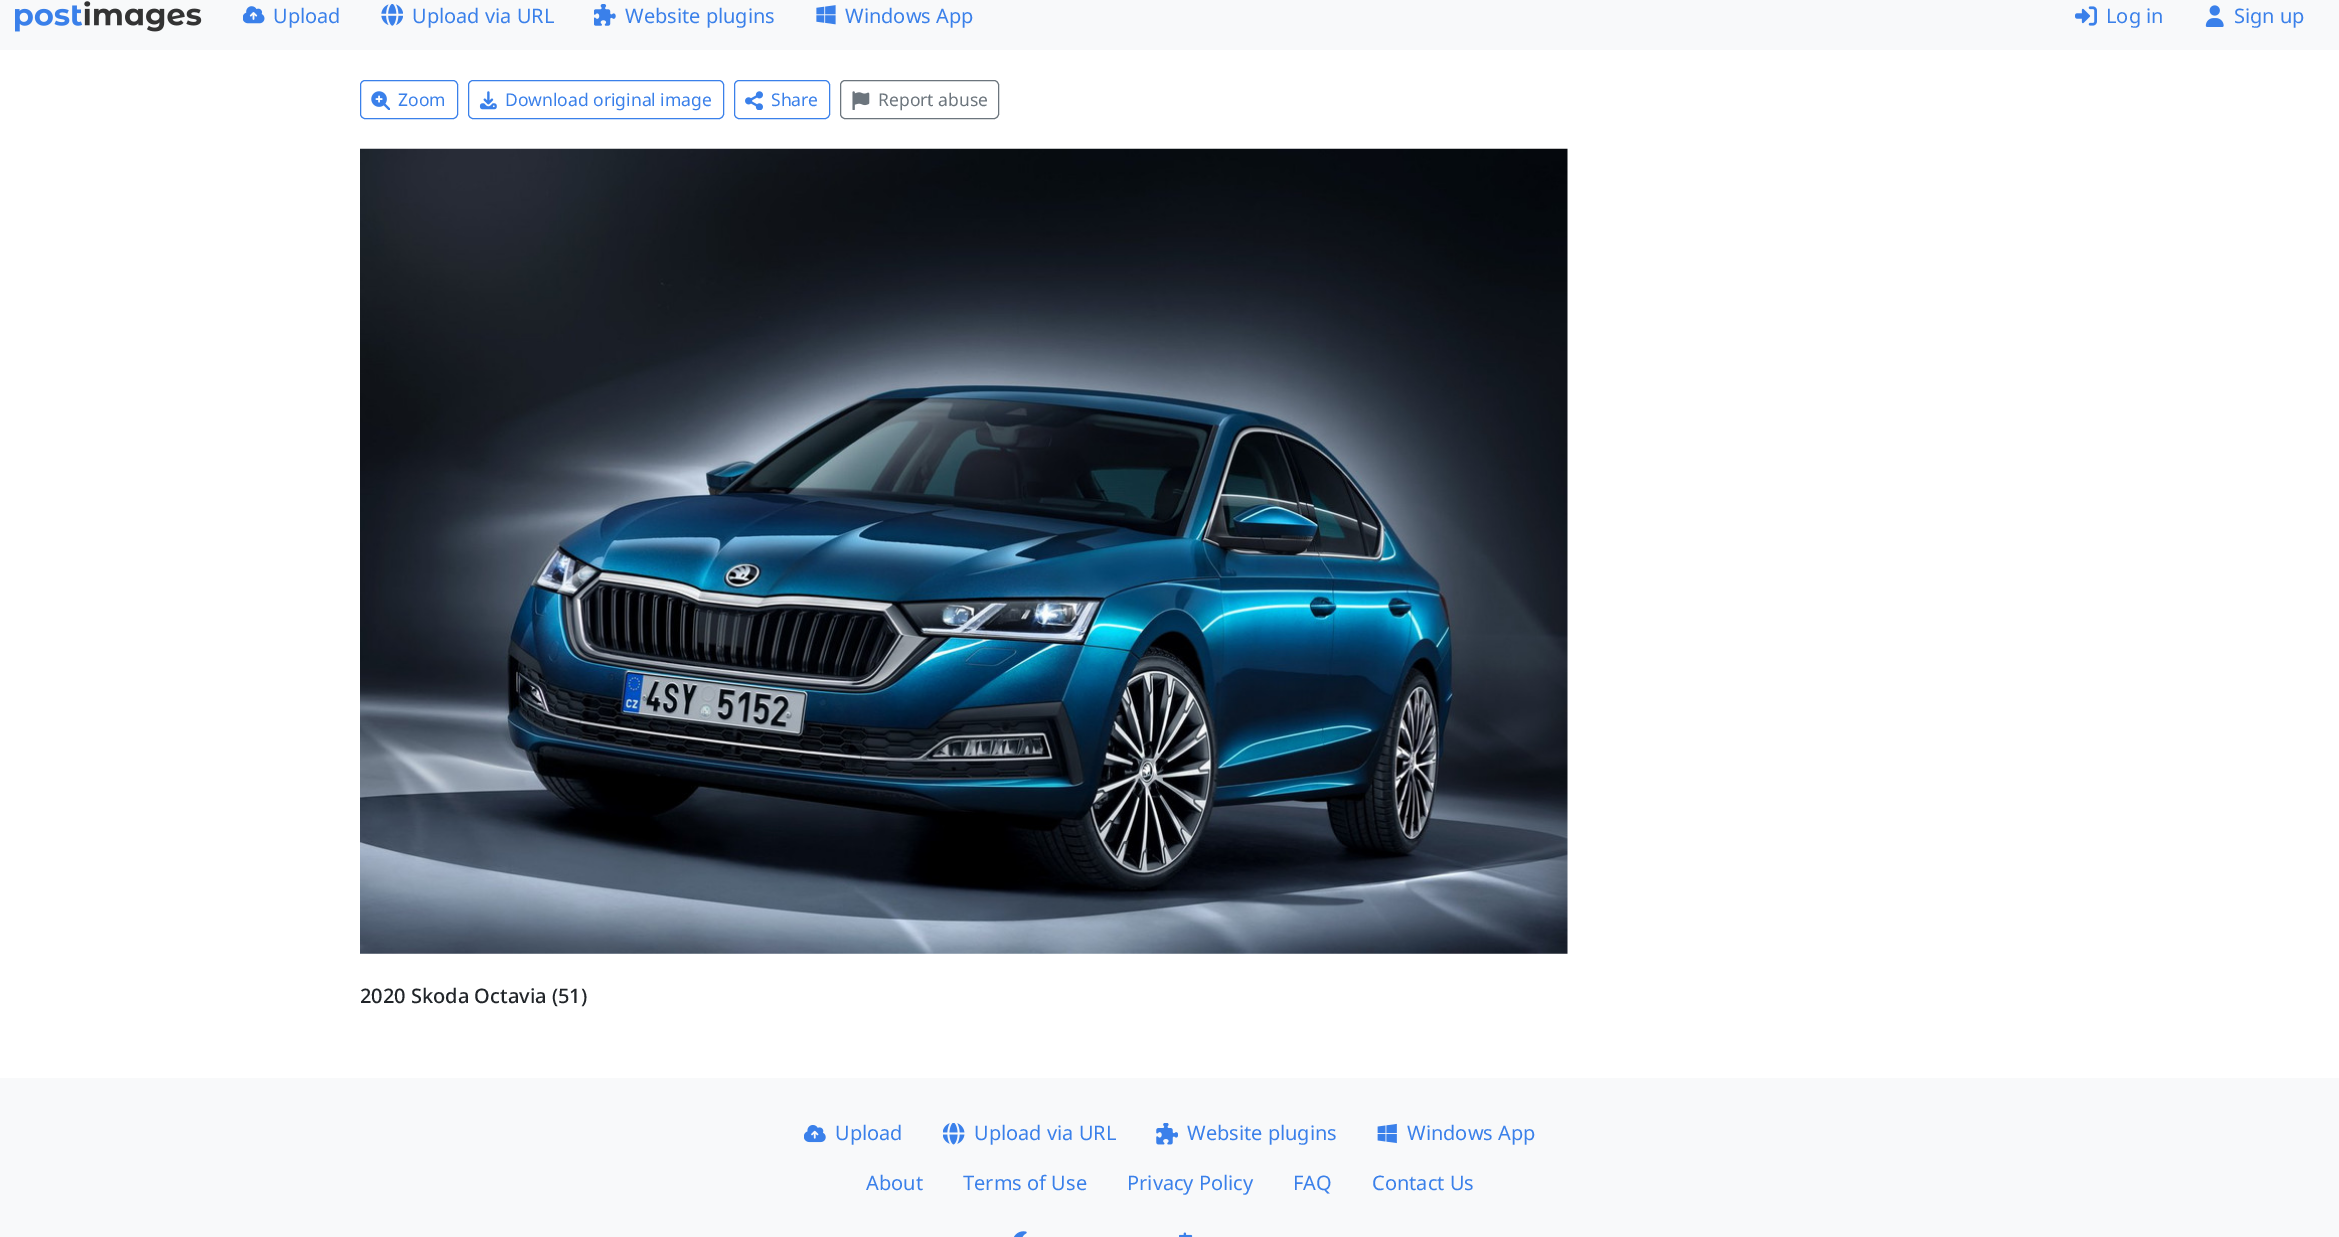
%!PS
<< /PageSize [2339 1237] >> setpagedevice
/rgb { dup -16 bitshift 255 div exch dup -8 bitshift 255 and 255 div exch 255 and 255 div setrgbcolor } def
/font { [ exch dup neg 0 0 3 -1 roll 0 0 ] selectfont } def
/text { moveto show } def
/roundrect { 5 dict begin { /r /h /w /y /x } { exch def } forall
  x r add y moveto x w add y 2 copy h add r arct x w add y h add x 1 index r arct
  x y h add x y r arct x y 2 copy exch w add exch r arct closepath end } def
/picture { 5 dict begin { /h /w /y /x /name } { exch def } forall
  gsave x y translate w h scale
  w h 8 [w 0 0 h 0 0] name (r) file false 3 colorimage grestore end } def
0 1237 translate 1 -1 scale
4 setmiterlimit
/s1 { /NotoSans-Regular 20 font 16#3A80EA rgb } def
/s2 { /NotoSans-Regular 17.5 font 16#3A80EA rgb } def
/s3 { /NotoSans-Regular 17.5 font 16#6C757D rgb } def
/s4 { /NotoSans-Medium 20 font 16#212529 rgb } def
16#FFFFFF rgb
0 0 2339 1237 rectfill
16#F8F9FA rgb
0 0 2339 50 rectfill
(pic1.raw) 15 1 187 31 picture
(pic2.raw) 243 6 22 18 picture
s1
(Upload) 273 23 text
(pic3.raw) 381 4 22 22 picture
(Upload via URL) 412 23 text
(pic4.raw) 594 4 22 22 picture
(Website plugins) 625 23 text
(pic5.raw) 816 5 20 20 picture
(Windows App) 845 23 text
(pic6.raw) 2075 6 22 20 picture
(Log in) 2106 23 text
(pic7.raw) 2205 5 19 22 picture
(Sign up) 2234 23 text
360.5 80.5 97 38 4.5 roundrect stroke
(pic8.raw) 371 91 19 19 picture
s2
(Zoom) 398 106 text
468.5 80.5 255 38 4.5 roundrect stroke
(pic9.raw) 479 91 18 19 picture
(Download original image) 505 106 text
734.5 80.5 95 38 4.5 roundrect stroke
(pic10.raw) 745 91 18 19 picture
(Share) 771 106 text
16#6C757D rgb
840.5 80.5 158 38 4.5 roundrect stroke
(pic11.raw) 852 91 18 19 picture
(Report abuse) 878 106 text
(pic12.raw) 360 148 1208 806 picture
s4
(2020 Skoda Octavia \(51\)) 360 1003 text
16#F8F9FA rgb
0 1078 2339 159 rectfill
(pic13.raw) 804 1125 22 18 picture
s1
(Upload) 835 1140 text
(pic14.raw) 943 1123 22 22 picture
(Upload via URL) 974 1140 text
(pic15.raw) 1156 1123 22 22 picture
(Website plugins) 1187 1140 text
(pic16.raw) 1377 1123 20 21 picture
(Windows App) 1407 1140 text
(About) 866 1190 text
(Terms of Use) 963 1190 text
(Privacy Policy) 1127 1190 text
(FAQ) 1293 1190 text
(Contact Us) 1372 1190 text
(pic17.raw) 1014 1231 13 6 picture
(pic18.raw) 1179 1232 14 5 picture
showpage
